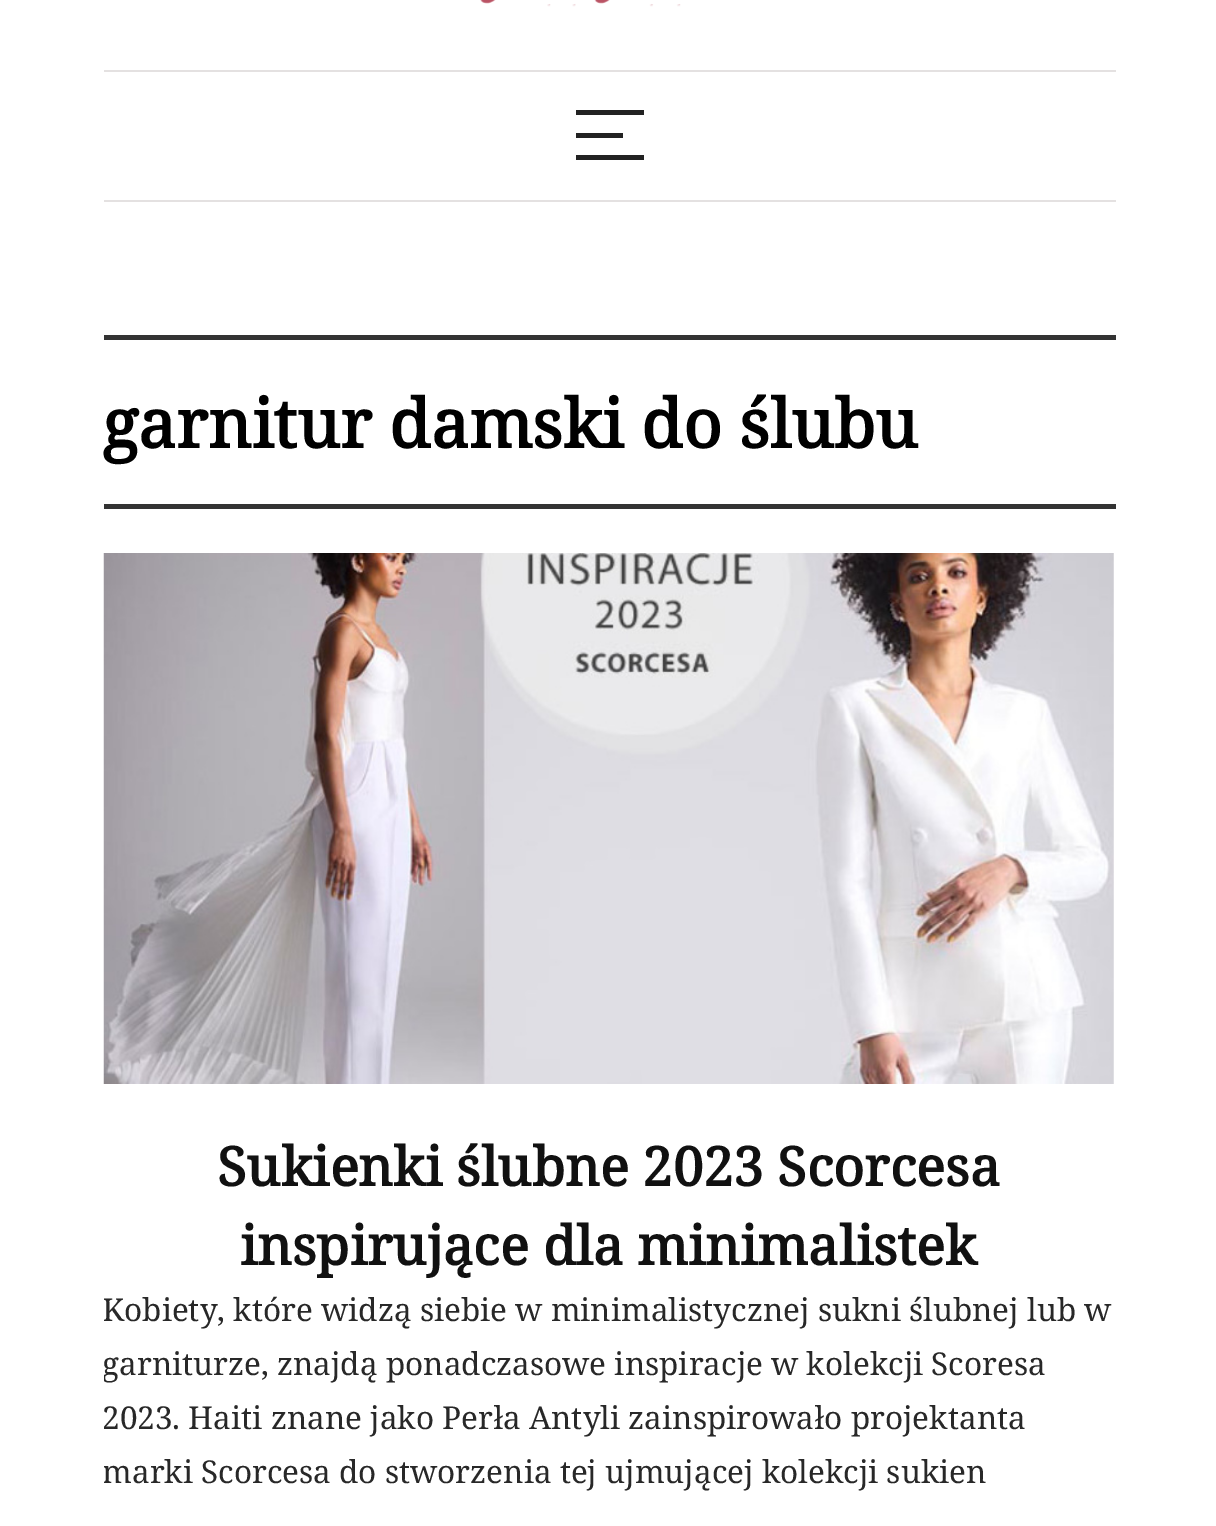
%!PS
<< /PageSize [1216 1526] >> setpagedevice
/rgb { dup -16 bitshift 255 div exch dup -8 bitshift 255 and 255 div exch 255 and 255 div setrgbcolor } def
/font { [ exch dup neg 0 0 3 -1 roll 0 0 ] selectfont } def
/text { moveto show } def
/picture { 5 dict begin { /h /w /y /x /name } { exch def } forall
  gsave x y translate w h scale
  w h 8 [w 0 0 h 0 0] name (r) file false 3 colorimage grestore end } def
0 1526 translate 1 -1 scale
4 setmiterlimit
/s1 { /NotoSerif-Bold 67.5 font 16#000000 rgb } def
/s2 { /NotoSerif-Bold 54 font 16#111111 rgb } def
/s3 { /NotoSerif-Regular 31.5 font 16#282828 rgb } def
16#FFFFFF rgb
0 0 1216 1526 rectfill
(pic1.raw) 480 0 201 7 picture
16#E4E1E1 rgb
104 70 1012 2 rectfill
104 200 1012 2 rectfill
16#222222 rgb
576 110 68 5 rectfill
576 133 47 5 rectfill
576 155 68 5 rectfill
16#333333 rgb
104 335 1012 5 rectfill
104 504 1012 5 rectfill
s1
(garnitur damski do ślubu) 102 448 text
(pic2.raw) 103 553 1011 531 picture
s2
(Sukienki ślubne 2023 Scorcesa) 217 1186 text
(inspirujące dla minimalistek) 240 1265 text
gsave
104 1283 1012 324 rectclip
s3
(Kobiety, które widzą siebie w minimalistycznej sukni ślubnej lub w) 102 1321 text
(garniturze, znajdą ponadczasowe inspiracje w kolekcji Scoresa) 102 1375 text
grestore
s3
(2023. Haiti znane jako Perła Antyli zainspirowało projektanta) 102 1429 text
gsave
104 1283 1012 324 rectclip
(marki Scorcesa do stworzenia tej ujmującej kolekcji sukien) 102 1483 text
grestore
showpage
